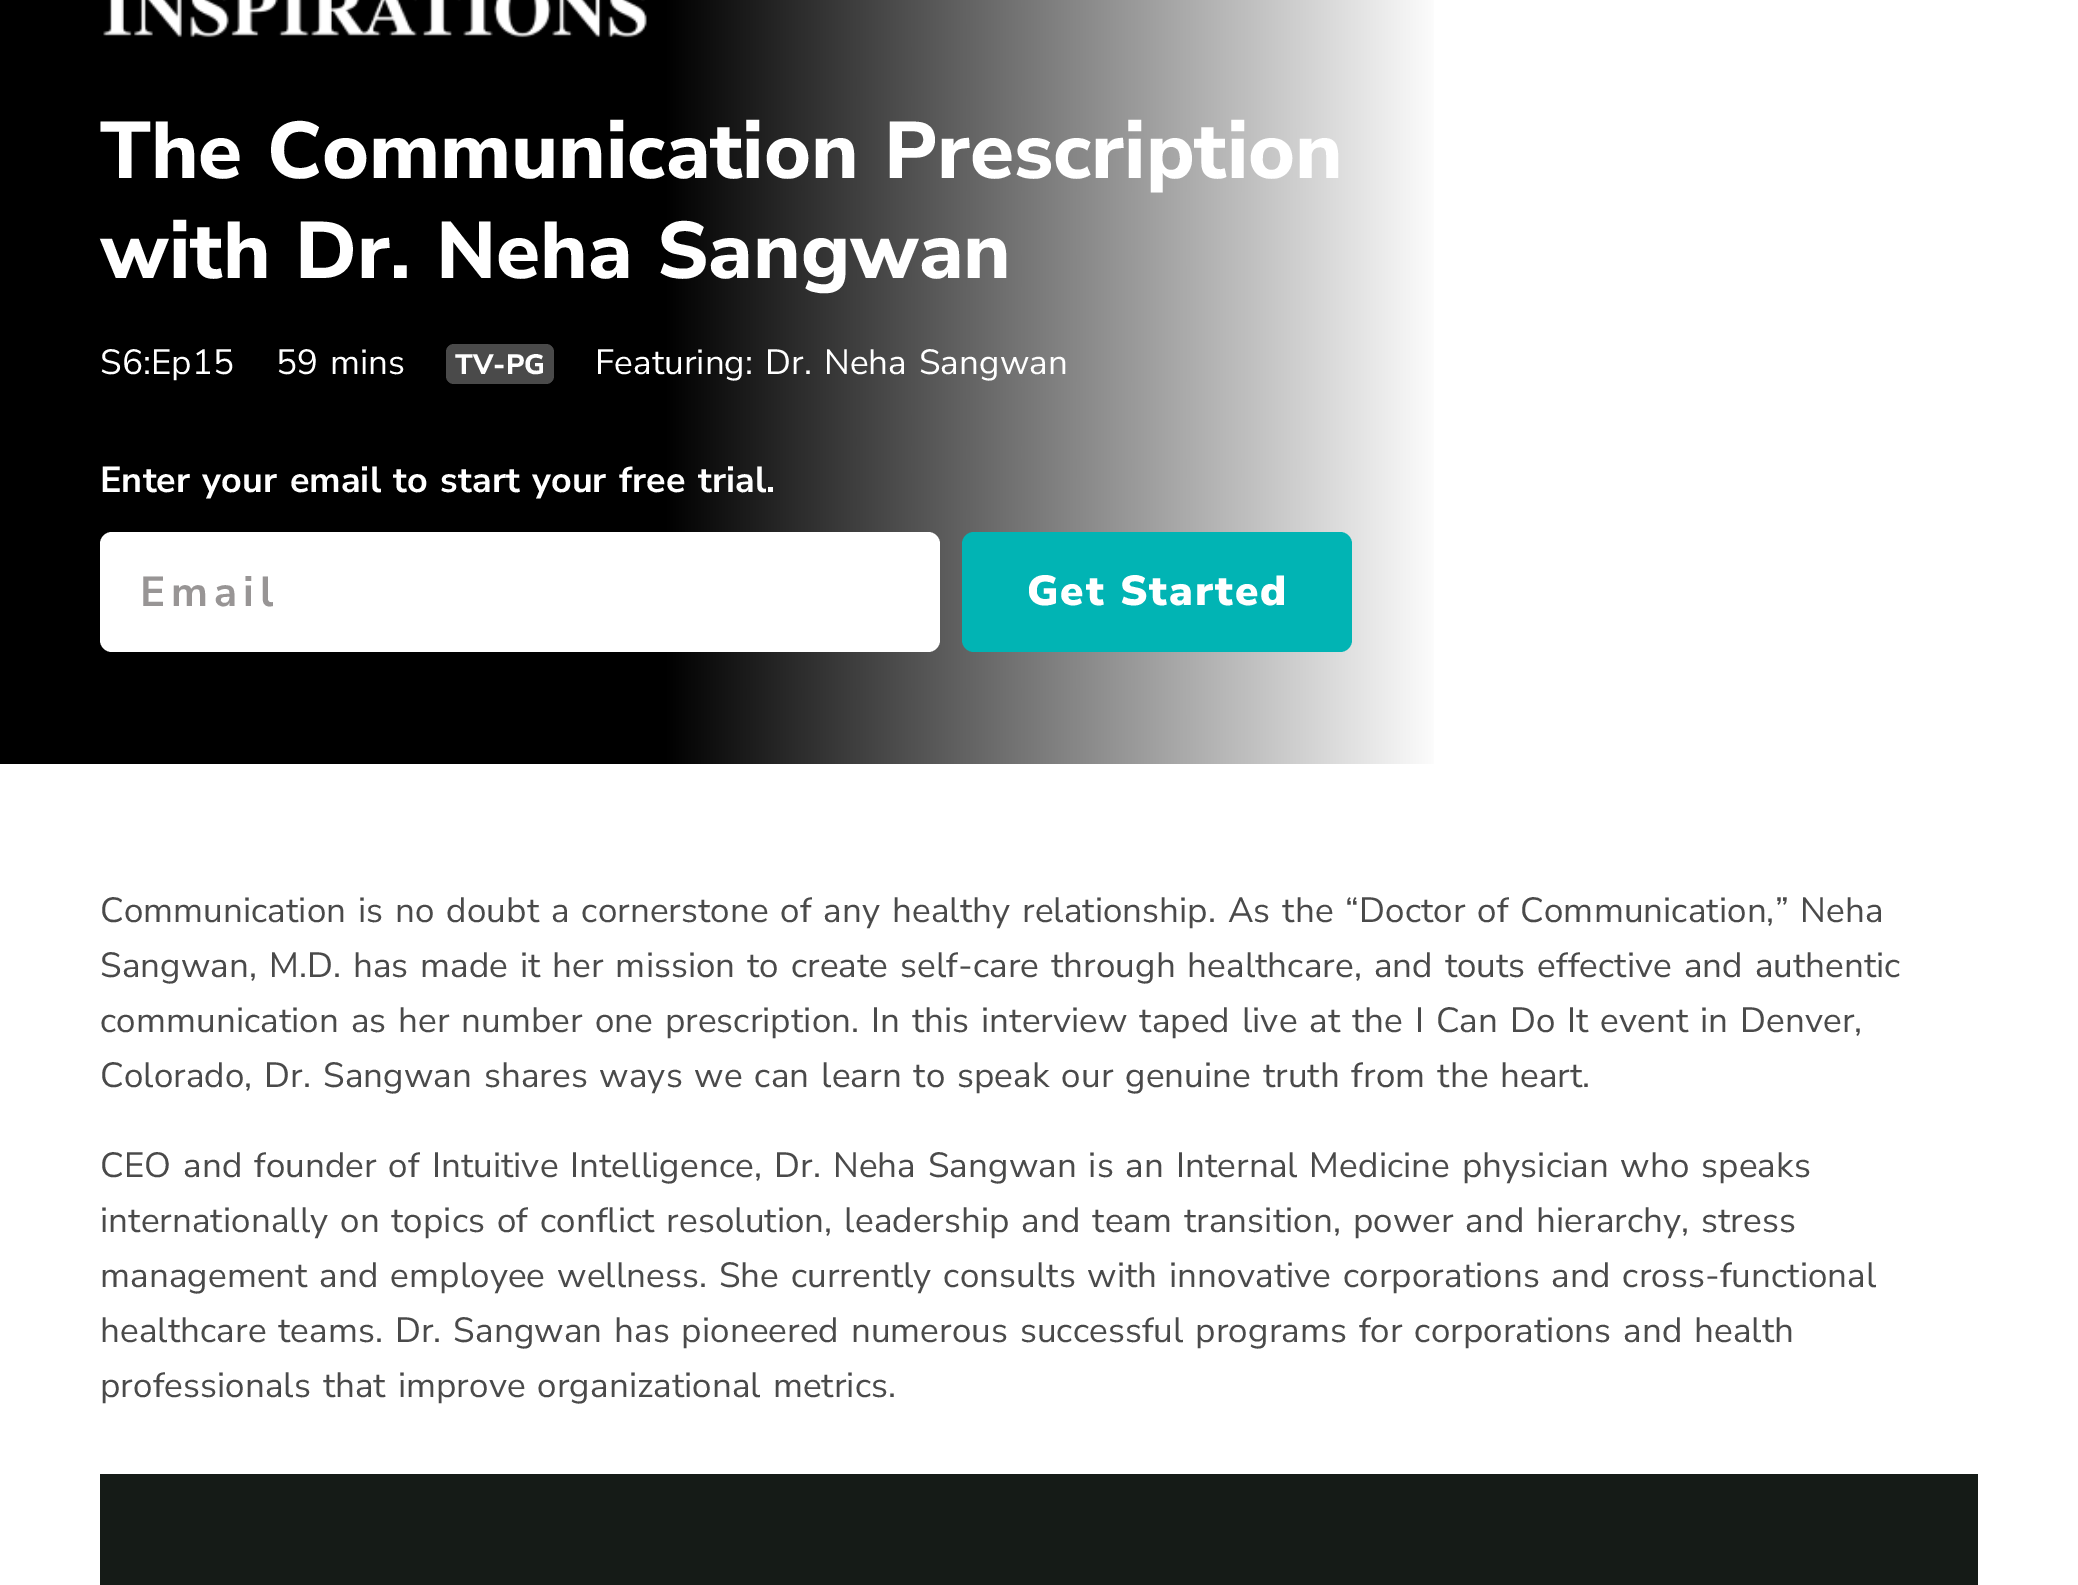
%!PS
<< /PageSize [2078 1585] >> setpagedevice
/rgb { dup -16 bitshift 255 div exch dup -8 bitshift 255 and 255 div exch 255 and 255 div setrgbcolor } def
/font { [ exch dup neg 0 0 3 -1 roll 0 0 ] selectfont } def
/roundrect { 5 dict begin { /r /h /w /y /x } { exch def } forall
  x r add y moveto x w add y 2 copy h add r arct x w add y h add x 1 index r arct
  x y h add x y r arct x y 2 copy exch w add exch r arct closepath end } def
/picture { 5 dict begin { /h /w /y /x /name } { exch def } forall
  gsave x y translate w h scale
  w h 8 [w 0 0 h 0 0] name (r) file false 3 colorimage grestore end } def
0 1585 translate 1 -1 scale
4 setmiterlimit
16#FFFFFF rgb
0 0 2078 1585 rectfill
16#000000 rgb
0 0 664 764 rectfill
gsave 664 0 moveto 1434 0 lineto 1434 764 lineto 664 764 lineto closepath clip newpath
<< /ShadingType 2 /ColorSpace /DeviceRGB /Coords [664 328 2078 328] /Extend [true true] /Function << /FunctionType 3 /Domain [0 1] /Functions [<< /FunctionType 2 /Domain [0 1] /C0 [0 0 0] /C1 [1 1 1] /N 1 >> << /FunctionType 2 /Domain [0 1] /C0 [1 1 1] /C1 [1 1 1] /N 1 >>] /Bounds [0.55] /Encode [0 1 0 1] >> >> shfill grestore
(pic1.raw) 103 0 544 38 picture
/NunitoSans-ExtraBold 80 font
16#FFFFFF rgb
100 178 moveto 2.75 0 32 (The Communication Prescription) widthshow
100 278 moveto 2.75 0 32 (with Dr. Neha Sangwan) widthshow
/NunitoSans-Regular 35 font
100 374 moveto 0.09 0 (S6:Ep15) ashow
276 374 moveto 2.75 0 32 0.09 0 (59 mins) awidthshow
16#4A4A4A rgb
446 344 108 40 8 roundrect fill
/NunitoSans-ExtraBold 28 font
16#FFFFFF rgb
455 374 moveto 0.09 0 (TV-PG) ashow
/NunitoSans-Regular 35 font
595 374 moveto 0.09 0 (Featuring:) ashow
765 374 moveto 2.75 0 32 0.09 0 (Dr. Neha Sangwan) awidthshow
/NunitoSans-Bold 36 font
100 492 moveto 2.75 0 32 (Enter your email to start your free trial.) widthshow
100 532 840 120 12 roundrect fill
/NunitoSans-Bold 42 font
16#989595 rgb
140 606 moveto 6 0 (Email) ashow
16#01B4B4 rgb
962 532 390 120 12 roundrect fill
/NunitoSans-Black 42 font
16#FFFFFF rgb
1027 605 moveto 2 0 (Get Started) ashow
/NunitoSans-Regular 35 font
16#4A4A4A rgb
100 922 moveto 2.75 0 32 0.09 0 (Communication is no doubt a cornerstone of any healthy relationship. As the “Doctor of Communication,” Neha) awidthshow
100 977 moveto 2.75 0 32 0.09 0 (Sangwan, M.D. has made it her mission to create self-care through healthcare, and touts effective and authentic) awidthshow
100 1032 moveto 2.75 0 32 0.09 0 (communication as her number one prescription. In this interview taped live at the I Can Do It event in Denver,) awidthshow
100 1087 moveto 2.75 0 32 0.09 0 (Colorado, Dr. Sangwan shares ways we can learn to speak our genuine truth from the heart.) awidthshow
100 1177 moveto 2.75 0 32 0.09 0 (CEO and founder of Intuitive Intelligence,) awidthshow
774 1177 moveto 2.75 0 32 0.09 0 (Dr. Neha Sangwan is an Internal Medicine physician who speaks) awidthshow
100 1232 moveto 2.75 0 32 0.09 0 (internationally on) awidthshow
391 1232 moveto 2.75 0 32 0.09 0 (topics of conflict resolution, leadership and team transition, power and hierarchy, stress) awidthshow
100 1287 moveto 2.75 0 32 0.09 0 (management and employee wellness. She currently consults with innovative corporations and cross-functional) awidthshow
100 1342 moveto 2.75 0 32 0.09 0 (healthcare teams. Dr. Sangwan has pioneered numerous successful programs for corporations and health) awidthshow
100 1397 moveto 2.75 0 32 0.09 0 (professionals that improve organizational metrics.) awidthshow
16#151B17 rgb
100 1474 1878 111 rectfill
showpage
